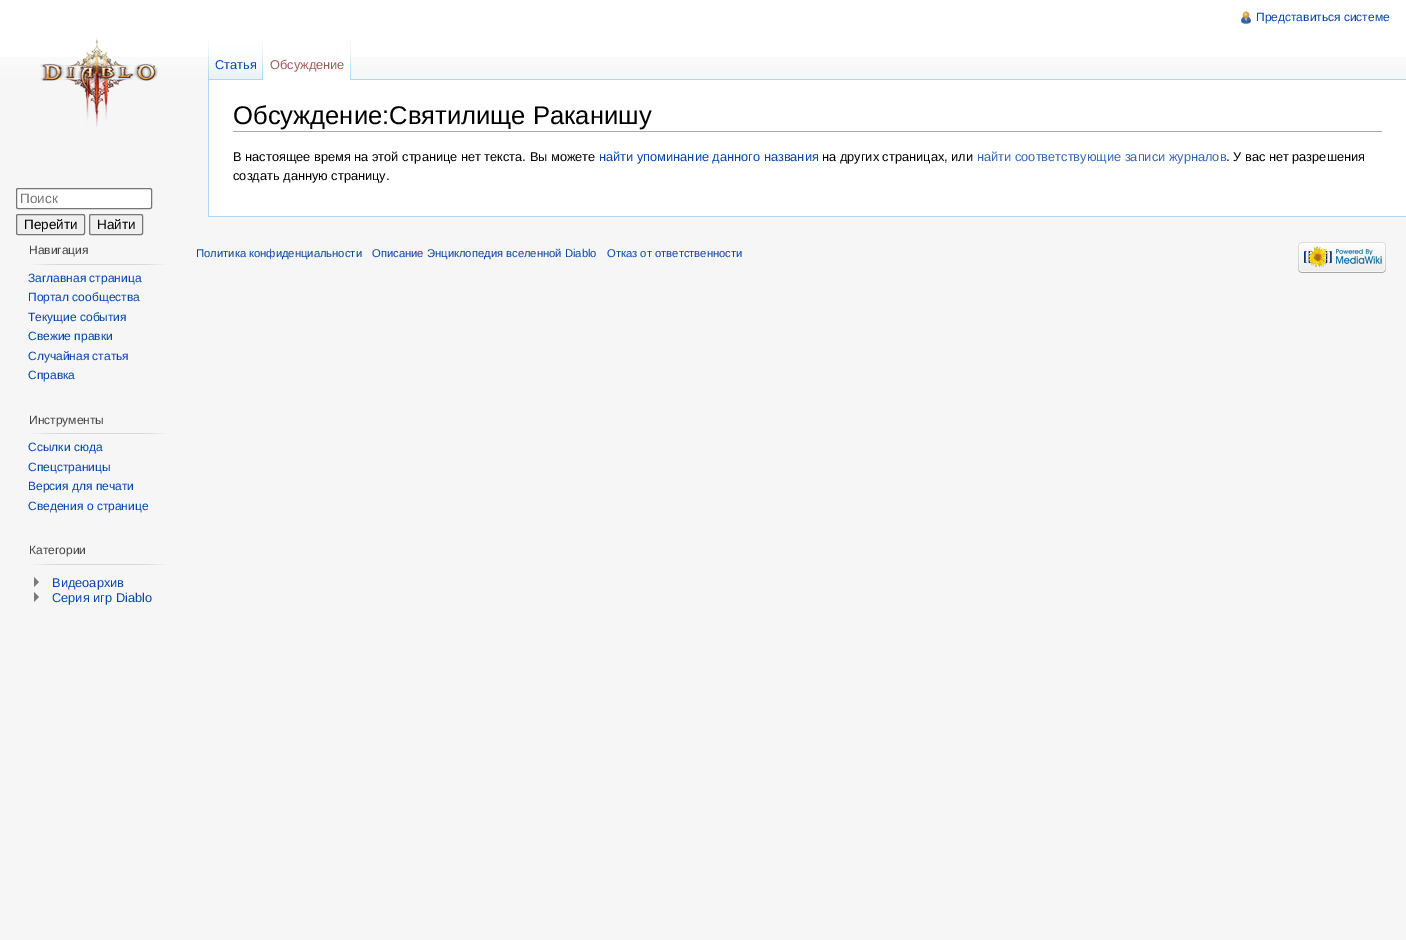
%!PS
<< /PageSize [1406 940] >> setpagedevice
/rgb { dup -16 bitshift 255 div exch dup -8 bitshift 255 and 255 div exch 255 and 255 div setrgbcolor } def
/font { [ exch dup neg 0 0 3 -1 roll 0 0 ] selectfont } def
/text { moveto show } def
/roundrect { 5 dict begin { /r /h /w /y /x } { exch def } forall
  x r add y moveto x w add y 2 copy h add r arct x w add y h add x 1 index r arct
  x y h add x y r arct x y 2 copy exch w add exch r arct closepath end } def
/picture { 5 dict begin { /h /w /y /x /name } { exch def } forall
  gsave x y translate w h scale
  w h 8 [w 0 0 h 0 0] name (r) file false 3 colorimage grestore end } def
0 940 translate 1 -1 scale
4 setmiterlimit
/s1 { /LiberationSans-Regular 12 font 16#0645AD rgb } def
/s2 { /LiberationSans-Regular 12.8 font 16#0645AD rgb } def
/s3 { /LiberationSans-Regular 12.8 font 16#A55858 rgb } def
/s4 { /LiberationSans-Regular 13.5 font 16#757575 rgb } def
/s5 { /LiberationSans-Regular 13.5 font 16#000000 rgb } def
/s6 { /LiberationSans-Regular 12 font 16#444444 rgb } def
/s7 { /LiberationSans-Regular 25.6 font 16#000000 rgb } def
/s8 { /LiberationSans-Regular 12.8 font 16#000000 rgb } def
/s9 { /LiberationSans-Regular 12.8 font 16#3366BB rgb } def
/s10 { /LiberationSans-Regular 11.25 font 16#0645AD rgb } def
16#F6F6F6 rgb
0 0 1406 940 rectfill
16#FFFFFF rgb
0 0 1406 57 rectfill
(pic1.raw) 0 57 1406 23 picture
(pic2.raw) 1241 11 10 13 picture
s1
(Представиться системе) 1256 21 text
(pic3.raw) 208 40 1 39 picture
(pic4.raw) 209 40 54 40 picture
(pic5.raw) 262 40 1 39 picture
s2
(Статья) 215 69 text
16#FFFFFF rgb
263 57 87 23 rectfill
(pic6.raw) 350 40 1 40 picture
s3
(Обсуждение) 270 69 text
(pic7.raw) 40 36 118 91 picture
16#FFFFFF rgb
16.5 188.5 135 20 1.5 roundrect gsave fill grestore
16#767676 rgb
stroke
s4
(Поиск) 20 203 text
16#EFEFEF rgb
16.5 214.5 68 20 1.5 roundrect gsave fill grestore
16#767676 rgb
stroke
s5
(Перейти) 24 229 text
16#EFEFEF rgb
89.5 214.5 53 20 1.5 roundrect gsave fill grestore
16#767676 rgb
stroke
s5
(Найти) 97 229 text
s6
(Навигация) 29 254 text
(pic8.raw) 31 264 135 1 picture
s1
(Заглавная страница) 28 282 text
(Портал сообщества) 28 301 text
(Текущие события) 28 321 text
(Свежие правки) 28 340 text
(Случайная статья) 28 360 text
(Справка) 28 379 text
s6
(Инструменты) 29 424 text
(pic8.raw) 31 433 135 1 picture
s1
(Ссылки сюда) 28 451 text
(Спецстраницы) 28 471 text
(Версия для печати) 28 490 text
(Сведения о странице) 28 510 text
s6
(Категории) 29 554 text
(pic8.raw) 31 564 135 1 picture
16#797979 rgb
34 577 moveto 39 582 lineto 34 587 lineto closepath fill
s2
(Видеоархив) 52 587 text
16#797979 rgb
34 592 moveto 39 597 lineto 34 602 lineto closepath fill
s2
(Серия игр Diablo) 52 602 text
16#FFFFFF rgb
209 80 1197 136 rectfill
16#A7D7F9 rgb
351 79 1055 1 rectfill
208 216 1198 1 rectfill
208 79 1 138 rectfill
16#AAAAAA rgb
233 131 1149 1 rectfill
s7
(Обсуждение:Святилище Раканишу) 233 124 text
s8
(В настоящее время на этой странице нет текста. Вы можете) 233 161 text
s2
(найти упоминание данного названия) 599 161 text
s8
(на других страницах, или) 822 161 text
s9
(найти соответствующие записи журналов) 977 161 text
s8
(. У вас нет разрешения) 1226 161 text
(создать данную страницу.) 233 180 text
s10
(Политика конфиденциальности) 196 257 text
(Описание Энциклопедия вселенной Diablo) 372 257 text
(Отказ от ответственности) 607 257 text
(pic9.raw) 1298 242 88 31 picture
showpage
